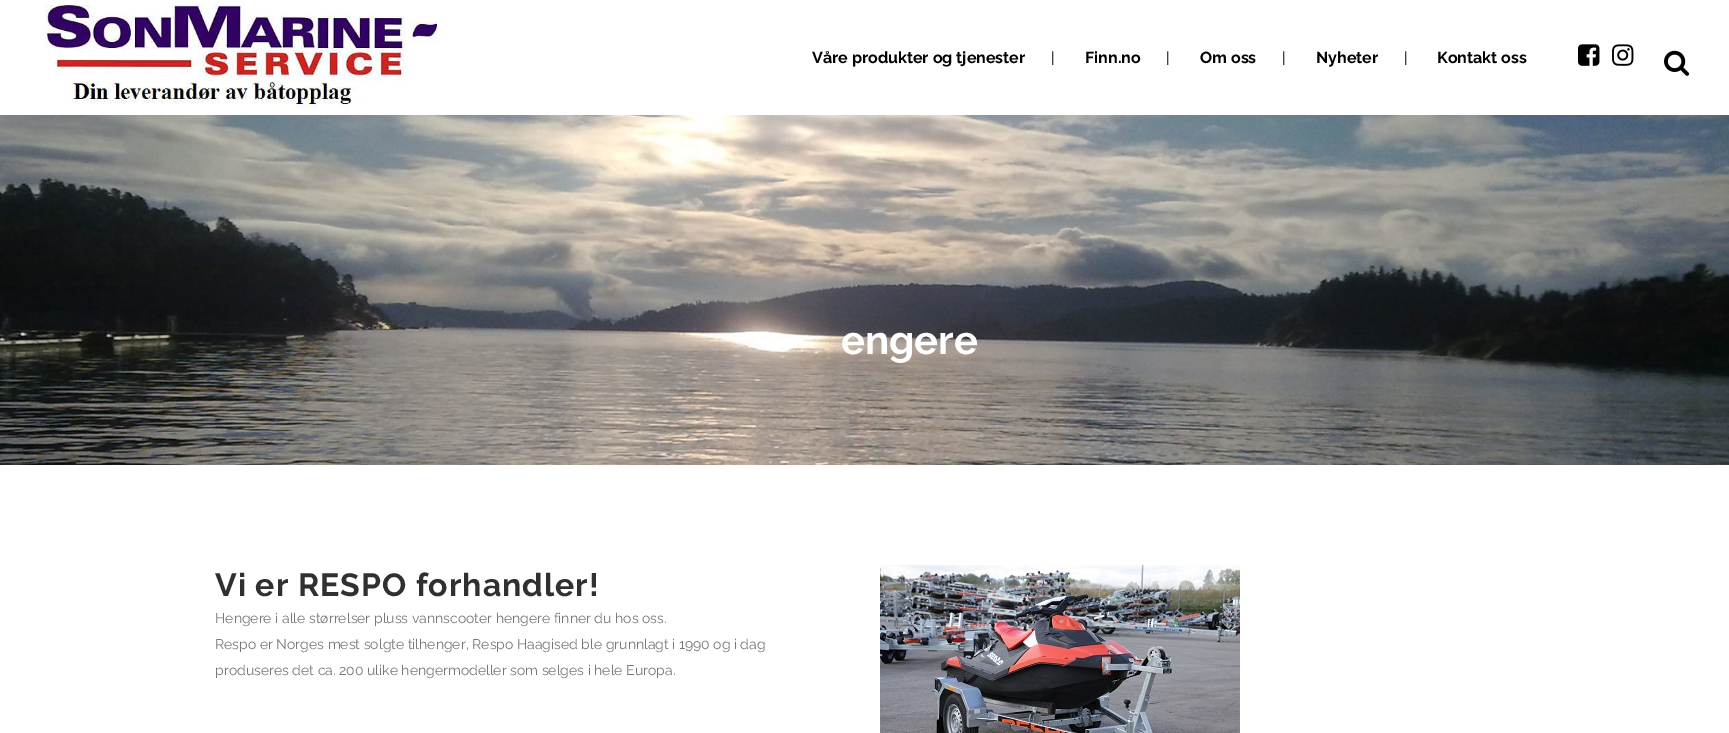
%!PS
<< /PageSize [1729 733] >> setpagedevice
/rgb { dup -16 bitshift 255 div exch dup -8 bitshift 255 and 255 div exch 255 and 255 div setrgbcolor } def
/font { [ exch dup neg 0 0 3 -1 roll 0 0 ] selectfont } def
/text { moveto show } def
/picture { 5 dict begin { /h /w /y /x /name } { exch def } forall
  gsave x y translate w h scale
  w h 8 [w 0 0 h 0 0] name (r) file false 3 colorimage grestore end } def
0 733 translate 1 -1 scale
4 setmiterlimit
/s1 { /Raleway-Bold 16 font 16#000000 rgb } def
/s2 { /Raleway-Regular 15 font 16#000000 rgb } def
/s3 { /Raleway-Bold 40 font 16#FFFFFF rgb } def
/s4 { /Raleway-Regular 14 font 16#777777 rgb } def
16#FFFFFF rgb
0 0 1729 733 rectfill
(pic1.raw) 45 5 392 104 picture
s1
(Våre produkter og tjenester) 812 63 text
s2
(|) 1051 63 text
s1
(Finn.no) 1085 63 text
s2
(|) 1166 63 text
s1
(Om oss) 1200 63 text
s2
(|) 1282 63 text
s1
(Nyheter) 1316 63 text
s2
(|) 1404 63 text
s1
(Kontakt oss) 1437 63 text
(pic2.raw) 1578 44 22 22 picture
(pic3.raw) 1612 44 22 22 picture
(pic4.raw) 1664 50 25 26 picture
(pic5.raw) 0 115 1729 350 picture
s3
(engere) 841 354 text
/Raleway-Bold 32 font
16#303030 rgb
215 596 moveto 1 0 (Vi er RESPO forhandler!) ashow
s4
(Hengere i alle størrelser pluss vannscooter hengere finner du hos oss.) 215 623 text
(Respo er Norges mest solgte tilhenger, Respo Haagised ble grunnlagt i 1990 og i dag) 215 649 text
(produseres det ca. 200 ulike hengermodeller som selges i hele Europa.) 215 675 text
(pic6.raw) 880 565 360 168 picture
showpage
